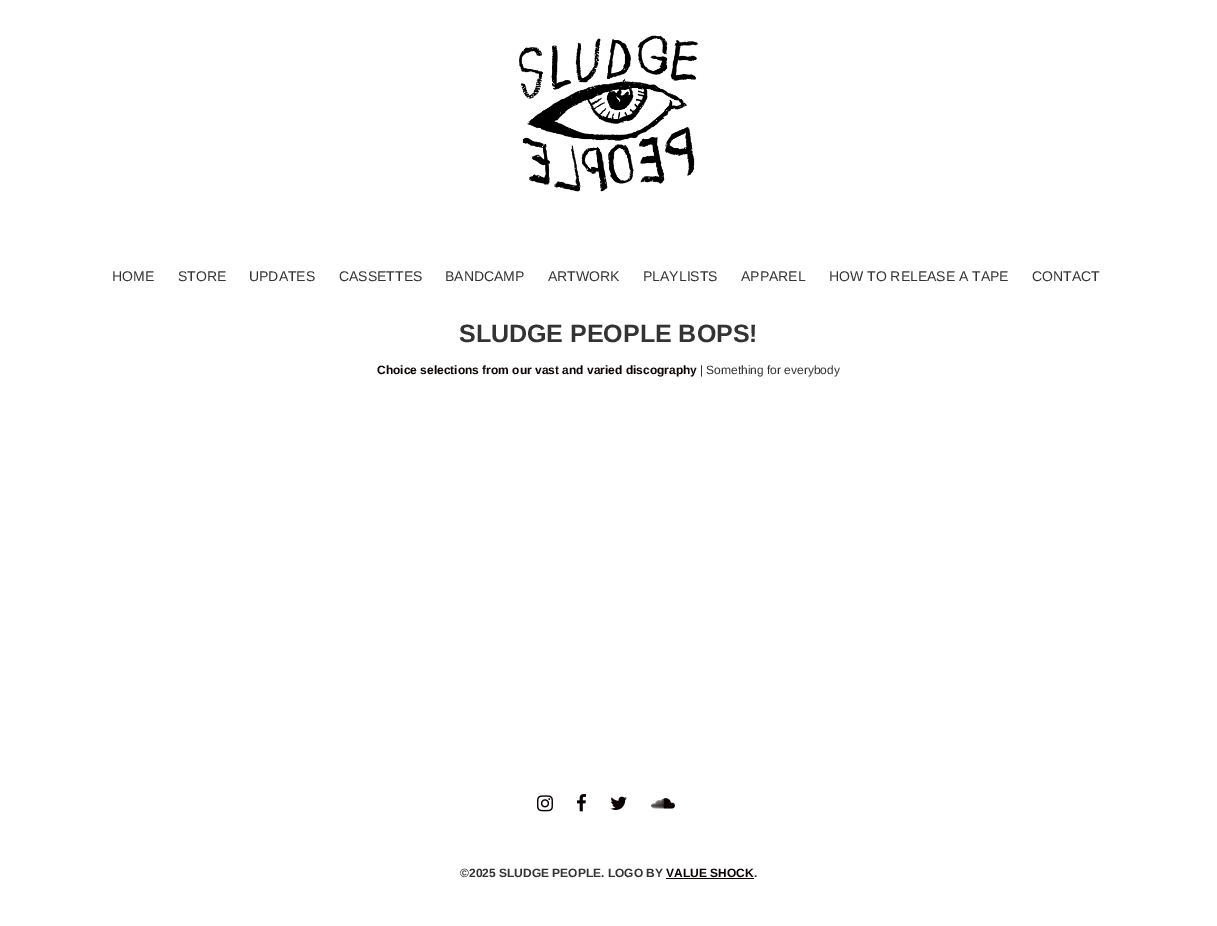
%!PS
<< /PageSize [1217 926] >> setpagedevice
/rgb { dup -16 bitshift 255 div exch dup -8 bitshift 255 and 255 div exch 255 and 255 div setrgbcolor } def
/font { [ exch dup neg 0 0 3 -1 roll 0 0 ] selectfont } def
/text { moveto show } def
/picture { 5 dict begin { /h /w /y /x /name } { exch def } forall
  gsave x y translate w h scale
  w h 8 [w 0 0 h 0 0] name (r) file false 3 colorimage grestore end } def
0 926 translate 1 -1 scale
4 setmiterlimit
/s1 { /LiberationSans-Regular 14 font 16#333333 rgb } def
/s2 { /LiberationSans-Bold 25 font 16#333333 rgb } def
/s3 { /LiberationSans-Bold 12 font 16#0A0202 rgb } def
/s4 { /LiberationSans-Regular 12 font 16#333333 rgb } def
/s5 { /LiberationSans-Bold 12 font 16#333333 rgb } def
16#FFFFFF rgb
0 0 1217 926 rectfill
(pic1.raw) 519 35 179 157 picture
s1
(HOME) 112 281 text
(STORE) 178 281 text
(UPDATES) 249 281 text
(CASSETTES) 339 281 text
(BANDCAMP) 445 281 text
(ARTWORK) 548 281 text
(PLAYLISTS) 643 281 text
(APPAREL) 741 281 text
(HOW TO RELEASE A TAPE) 829 281 text
(CONTACT) 1032 281 text
s2
(SLUDGE PEOPLE BOPS!) 459 342 text
s3
(Choice selections from our vast and varied discography) 377 374 text
s4
(| Something for everybody) 700 374 text
(pic2.raw) 537 795 16 17 picture
(pic3.raw) 577 794 9 18 picture
(pic4.raw) 610 796 17 14 picture
(pic5.raw) 651 798 24 11 picture
s5
(©2025 SLUDGE PEOPLE. LOGO BY) 460 877 text
s3
(VALUE SHOCK) 666 877 text
666 878 88 1 rectfill
s5
(.) 754 877 text
showpage
